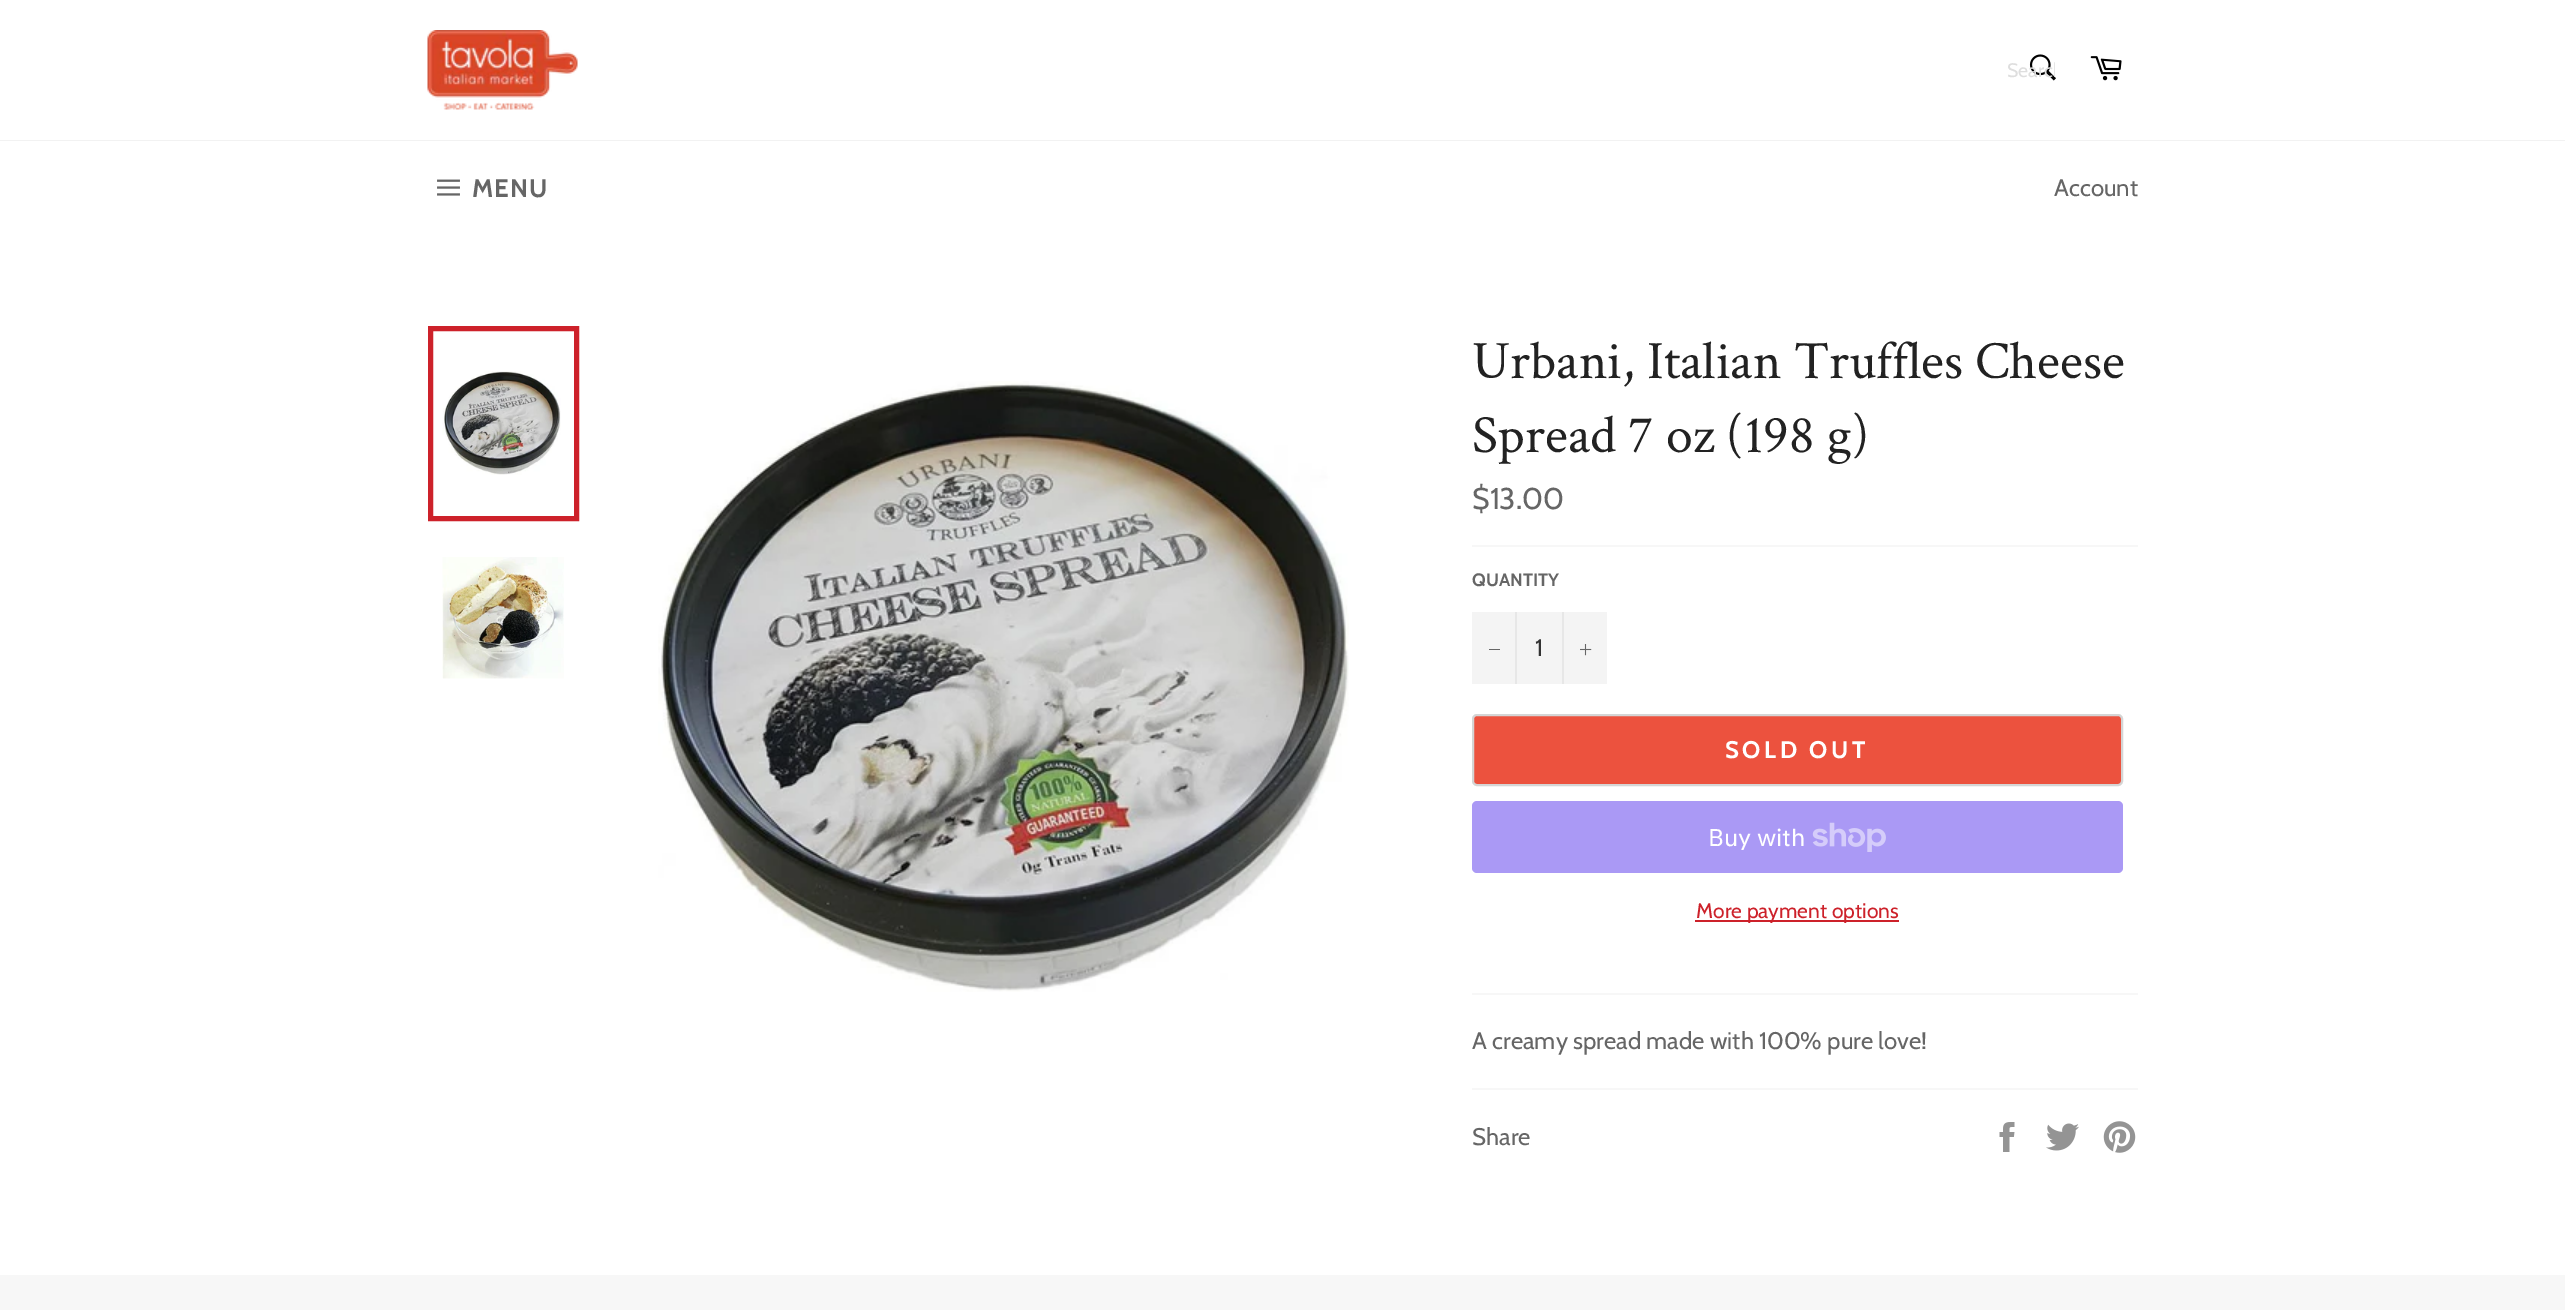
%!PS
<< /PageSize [2565 1310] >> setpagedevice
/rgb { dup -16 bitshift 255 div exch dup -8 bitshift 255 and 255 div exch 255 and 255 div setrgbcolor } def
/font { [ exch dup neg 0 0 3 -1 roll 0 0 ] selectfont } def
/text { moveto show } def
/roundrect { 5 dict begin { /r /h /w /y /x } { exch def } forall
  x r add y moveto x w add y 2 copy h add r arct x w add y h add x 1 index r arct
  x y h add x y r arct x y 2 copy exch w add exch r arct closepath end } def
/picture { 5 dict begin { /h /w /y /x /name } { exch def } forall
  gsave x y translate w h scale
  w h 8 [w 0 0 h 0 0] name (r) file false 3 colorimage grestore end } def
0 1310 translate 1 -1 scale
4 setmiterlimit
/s1 { /Cabin-Regular 19.5 font 16#DEDEDE rgb } def
/s2 { /Cabin-Regular 24 font 16#666666 rgb } def
/s3 { /CrimsonText-Regular 54 font 16#222222 rgb } def
/s4 { /Cabin-Regular 30 font 16#666666 rgb } def
/s5 { /Cabin-Bold 18 font 16#666666 rgb } def
/s6 { /Cabin-Regular 24 font 16#333333 rgb } def
/s7 { /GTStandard-Regular 24 font 16#FFFFFF rgb } def
/s8 { /Cabin-Regular 21 font 16#CD212A rgb } def
16#FFFFFF rgb
0 0 2565 1310 rectfill
(pic1.raw) 427 30 151 80 picture
(pic2.raw) 2029 54 27 27 picture
gsave
2007 59 48 24 rectclip
s1
(Search) 2007 77 text
grestore
(pic3.raw) 2090 56 32 25 picture
16#F2F2F2 rgb
0 140 2565 1 rectfill
(pic4.raw) 437 179 23 17 picture
/Cabin-Bold 25.5 font
16#666666 rgb
472 197 moveto 1 0 (MENU) ashow
s2
(Account) 2054 196 text
(pic5.raw) 442 371 119 104 picture
16#CD212A rgb
5 setlinewidth
430.5 328.5 146 190 rectstroke
(pic6.raw) 442 557 122 122 picture
(pic7.raw) 658 381 691 611 picture
s3
(Urbani, Italian Truffles Cheese) 1472 378 text
(Spread 7 oz \(198 g\)) 1472 452 text
s4
($13.00) 1472 509 text
16#F7F7F7 rgb
1472 545 666 2 rectfill
s5
(QUANTITY) 1472 586 text
16#F4F4F4 rgb
1472 612 135 72 rectfill
16#E7E7E7 rgb
1515 612 2 72 rectfill
16#666666 rgb
1489 649 11 1 rectfill
s6
(1) 1535 656 text
16#E7E7E7 rgb
1562 612 2 72 rectfill
(pic8.raw) 1580 644 12 12 picture
16#EC523E rgb
1473 715 649 70 4 roundrect gsave fill grestore
16#D5D5D5 rgb
2 setlinewidth
stroke
/Cabin-Bold 24 font
16#FFFFFF rgb
1725 758 moveto 3.5 0 (SOLD OUT) ashow
16#AA99F5 rgb
1472 801 651 72 5 roundrect fill
s7
(Buy with) 1708 846 text
(pic9.raw) 1812 822 74 30 picture
16#CD212A rgb
1695 920 204 2 rectfill
s8
(More payment options) 1696 918 text
16#F7F7F7 rgb
1472 993 666 2 rectfill
s2
(A creamy spread made with 100% pure love!) 1472 1049 text
16#F7F7F7 rgb
1472 1088 666 2 rectfill
s2
(Share) 1472 1145 text
(pic10.raw) 1999 1122 16 30 picture
(pic11.raw) 2046 1123 33 28 picture
(pic12.raw) 2103 1121 33 32 picture
16#F7F7F7 rgb
0 1275 2565 35 rectfill
showpage
